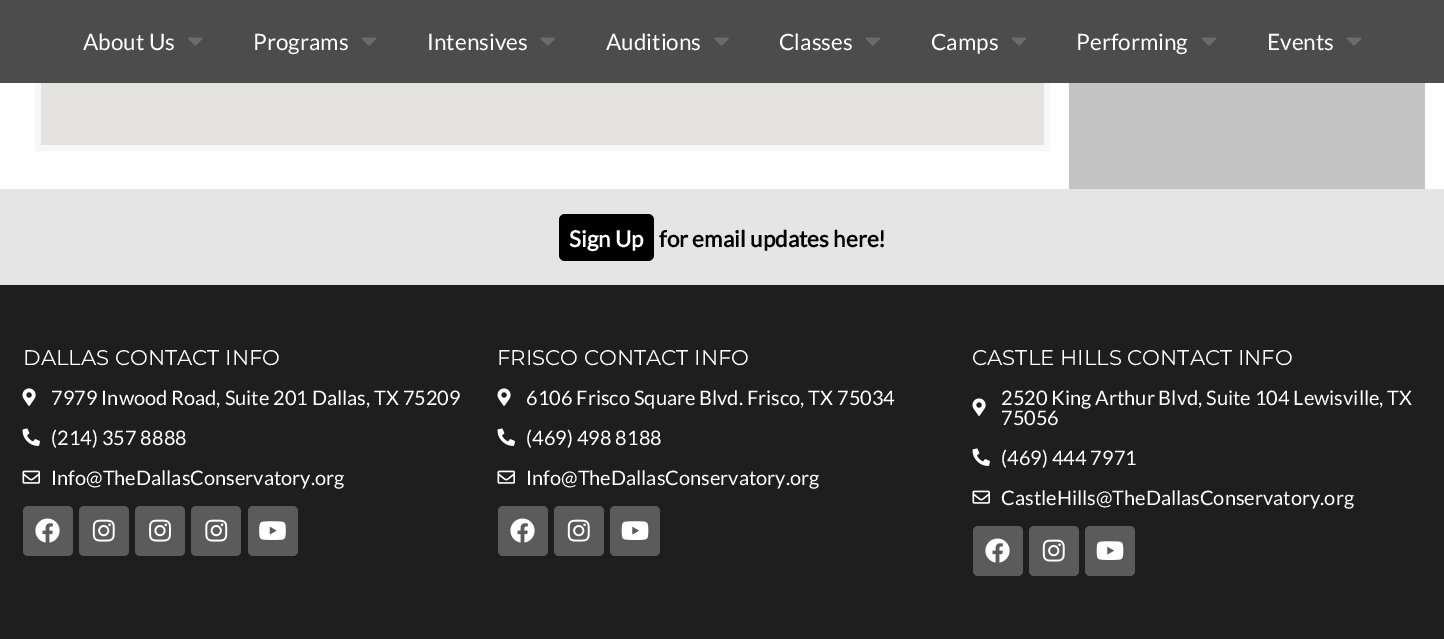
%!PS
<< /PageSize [1444 639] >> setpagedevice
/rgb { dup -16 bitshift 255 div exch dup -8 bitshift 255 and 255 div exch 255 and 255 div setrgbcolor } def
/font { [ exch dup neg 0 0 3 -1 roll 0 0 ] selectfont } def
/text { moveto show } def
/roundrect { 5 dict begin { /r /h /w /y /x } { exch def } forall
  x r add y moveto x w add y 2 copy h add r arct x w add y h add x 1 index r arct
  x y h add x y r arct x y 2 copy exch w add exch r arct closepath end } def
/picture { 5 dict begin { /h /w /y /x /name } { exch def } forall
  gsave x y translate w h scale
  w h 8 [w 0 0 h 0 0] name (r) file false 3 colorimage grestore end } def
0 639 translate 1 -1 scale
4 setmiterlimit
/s1 { /Lato-Regular 22.5 font 16#FFFFFF rgb } def
/s2 { /Lato-Bold 22.5 font 16#FFFFFF rgb } def
/s3 { /Lato-Bold 22.5 font 16#000000 rgb } def
/s4 { /Montserrat-Regular 21.25 font 16#FFFFFF rgb } def
/s5 { /Lato-Regular 20 font 16#FFFFFF rgb } def
16#FFFFFF rgb
0 0 1444 639 rectfill
16#F7F7F7 rgb
6 setlinewidth
38 -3 1009 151 rectstroke
16#4C4C4C rgb
0 0 1444 83 rectfill
s1
(About Us) 83 50 text
(pic1.raw) 188 37 15 9 picture
(Programs) 253 50 text
(pic2.raw) 361 37 16 9 picture
(Intensives) 427 50 text
(pic3.raw) 540 37 15 9 picture
(Auditions) 606 50 text
(pic4.raw) 714 37 15 9 picture
(Classes) 779 50 text
(pic3.raw) 865 37 15 9 picture
(Camps) 931 50 text
(pic2.raw) 1011 37 16 9 picture
(Performing) 1076 50 text
(pic2.raw) 1201 37 16 9 picture
(Events) 1267 50 text
(pic2.raw) 1346 37 16 9 picture
16#E5E3DF rgb
41 83 1003 62 rectfill
16#C3C3C3 rgb
1069 83 356 106 rectfill
16#E5E5E5 rgb
0 189 1444 96 rectfill
16#000000 rgb
559 214 95 47 6 roundrect fill
s2
(Sign Up) 569 247 text
s3
(for email updates here!) 659 247 text
16#1E1E1E rgb
0 285 1444 354 rectfill
s4
(DALLAS CONTACT INFO) 23 365 text
(pic5.raw) 22 388 14 18 picture
s5
(7979 Inwood Road, Suite 201 Dallas, TX 75209) 51 405 text
(pic6.raw) 22 428 18 18 picture
(\(214\) 357 8888) 51 445 text
(pic7.raw) 22 470 18 14 picture
(Info@TheDallasConservatory.org) 51 485 text
16#5B5B5B rgb
23 506 50 50 5 roundrect fill
(pic8.raw) 35 518 25 25 picture
79 506 50 50 5 roundrect fill
(pic9.raw) 92 519 23 23 picture
135 506 50 50 5 roundrect fill
(pic10.raw) 149 519 22 23 picture
191 506 50 50 5 roundrect fill
(pic11.raw) 205 519 23 23 picture
248 506 50 50 5 roundrect fill
(pic12.raw) 259 521 27 19 picture
s4
(FRISCO CONTACT INFO) 497 365 text
(pic5.raw) 497 388 14 18 picture
s5
(6106 Frisco Square Blvd. Frisco, TX 75034) 526 405 text
(pic6.raw) 497 428 18 18 picture
(\(469\) 498 8188) 526 445 text
(pic7.raw) 497 470 18 14 picture
(Info@TheDallasConservatory.org) 526 485 text
16#5B5B5B rgb
498 506 50 50 5 roundrect fill
(pic8.raw) 510 518 25 25 picture
554 506 50 50 5 roundrect fill
(pic9.raw) 567 519 23 23 picture
610 506 50 50 5 roundrect fill
(pic13.raw) 621 521 28 19 picture
s4
(CASTLE HILLS CONTACT INFO) 972 365 text
(pic5.raw) 972 398 14 18 picture
s5
(2520 King Arthur Blvd, Suite 104 Lewisville, TX) 1001 405 text
(75056) 1001 425 text
(pic6.raw) 972 448 18 18 picture
(\(469\) 444 7971) 1001 465 text
(pic7.raw) 972 490 18 14 picture
(CastleHills@TheDallasConservatory.org) 1001 505 text
16#5B5B5B rgb
973 526 50 50 5 roundrect fill
(pic8.raw) 985 538 25 25 picture
1029 526 50 50 5 roundrect fill
(pic9.raw) 1042 539 23 23 picture
1085 526 50 50 5 roundrect fill
(pic13.raw) 1096 541 28 19 picture
showpage
